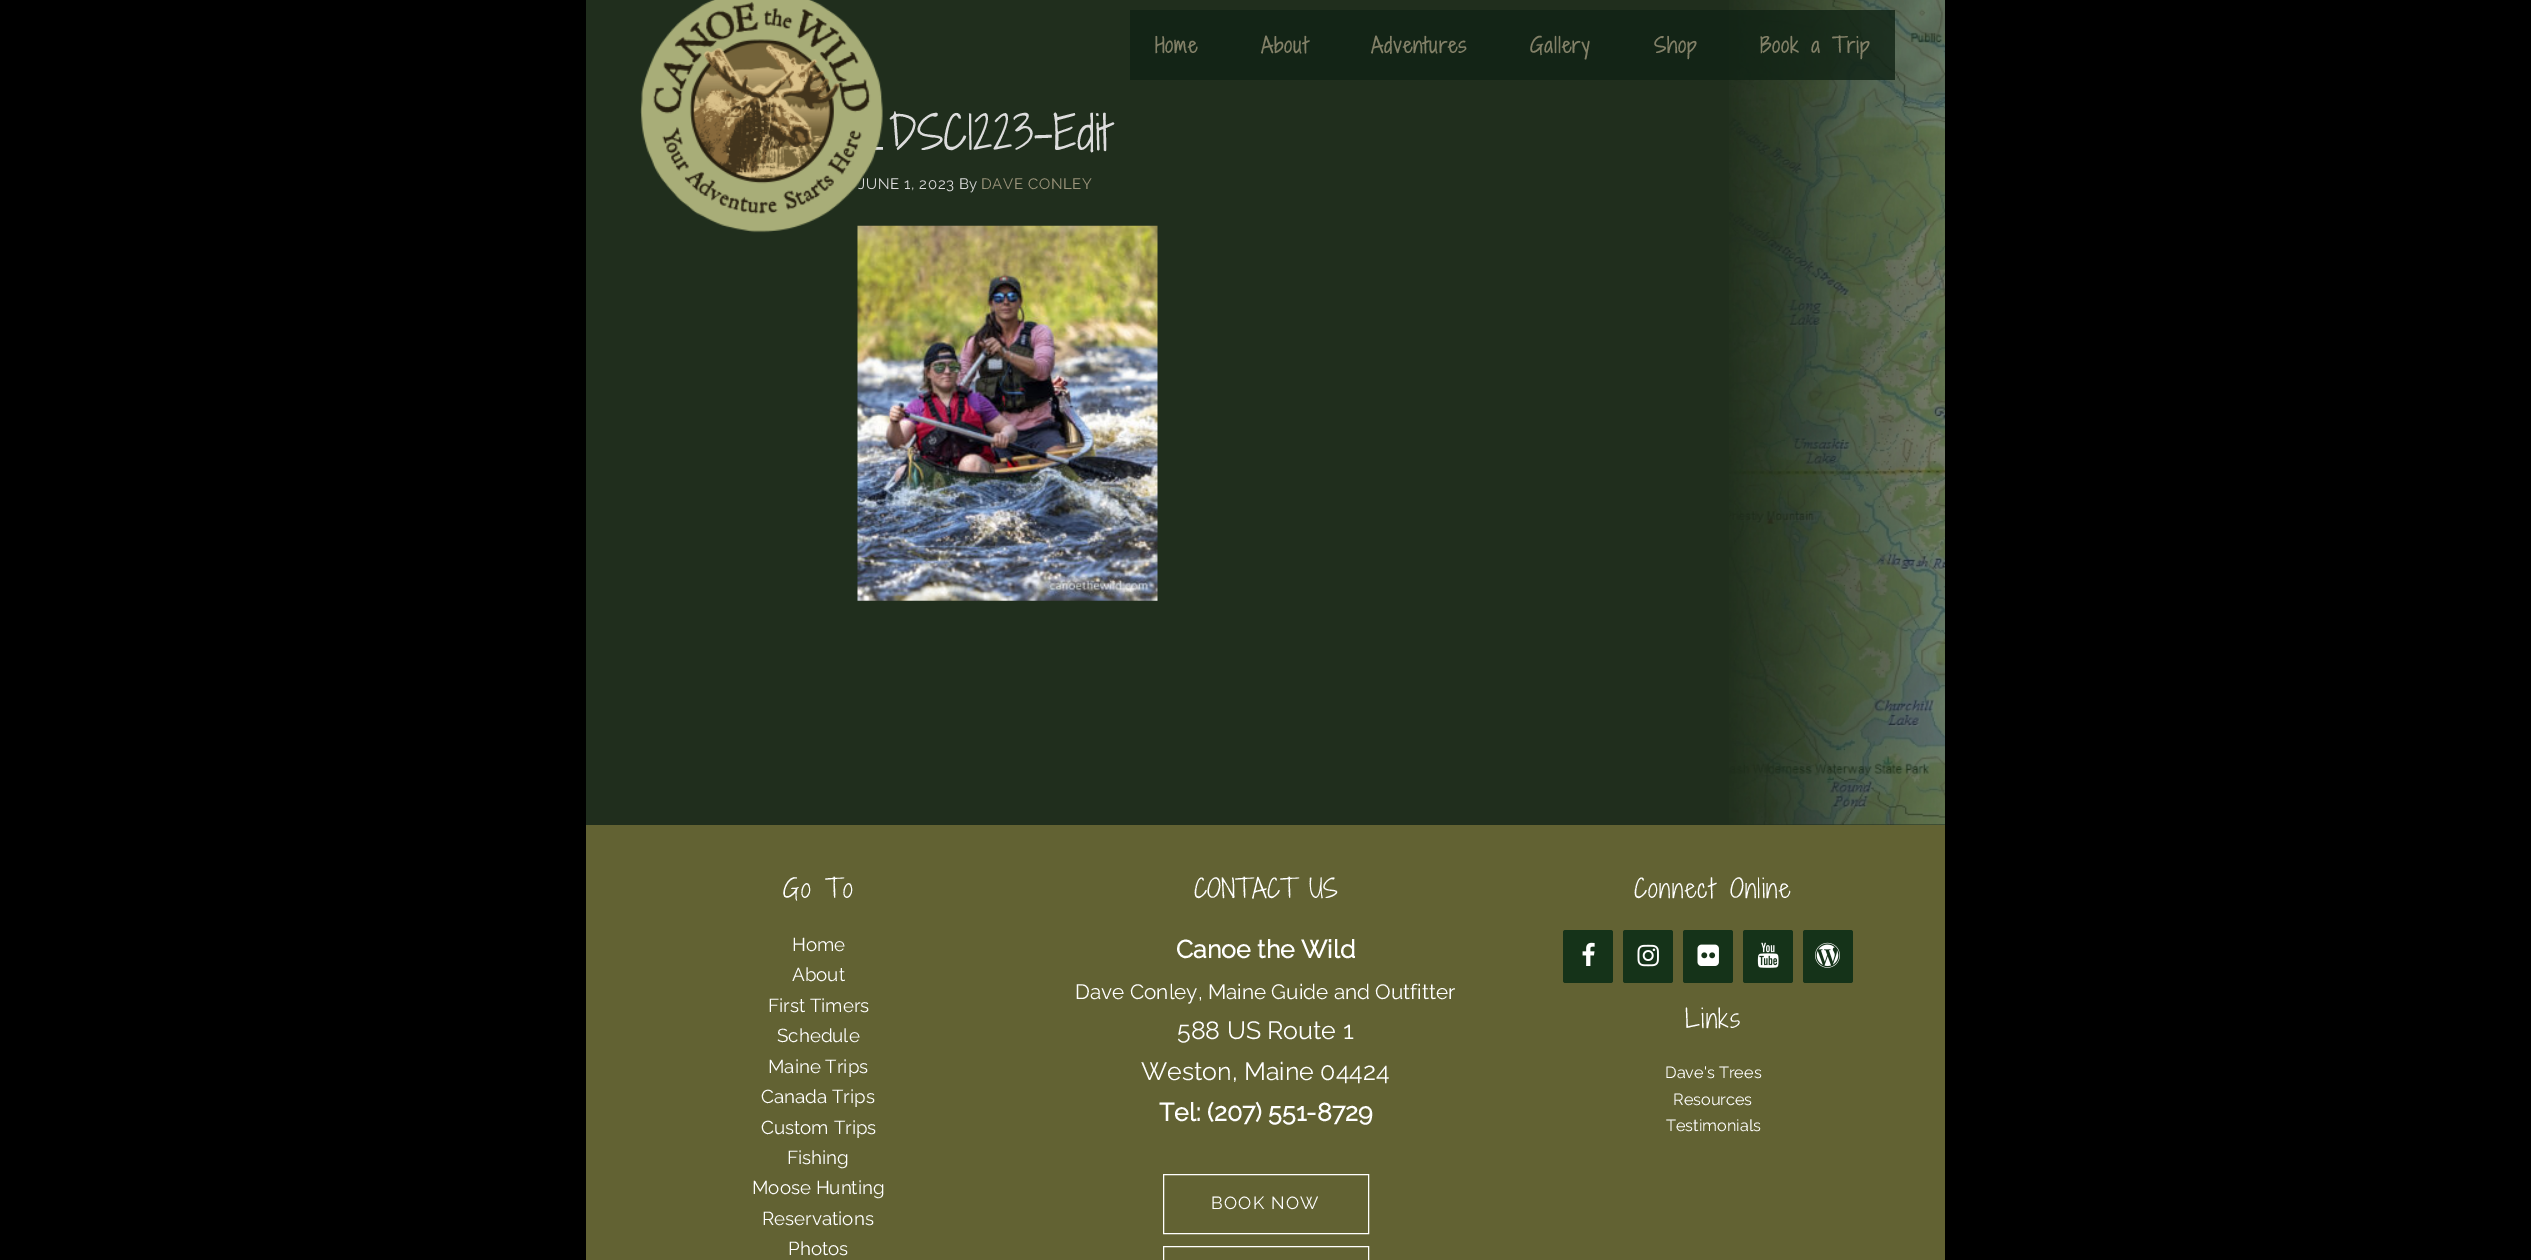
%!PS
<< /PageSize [2531 1260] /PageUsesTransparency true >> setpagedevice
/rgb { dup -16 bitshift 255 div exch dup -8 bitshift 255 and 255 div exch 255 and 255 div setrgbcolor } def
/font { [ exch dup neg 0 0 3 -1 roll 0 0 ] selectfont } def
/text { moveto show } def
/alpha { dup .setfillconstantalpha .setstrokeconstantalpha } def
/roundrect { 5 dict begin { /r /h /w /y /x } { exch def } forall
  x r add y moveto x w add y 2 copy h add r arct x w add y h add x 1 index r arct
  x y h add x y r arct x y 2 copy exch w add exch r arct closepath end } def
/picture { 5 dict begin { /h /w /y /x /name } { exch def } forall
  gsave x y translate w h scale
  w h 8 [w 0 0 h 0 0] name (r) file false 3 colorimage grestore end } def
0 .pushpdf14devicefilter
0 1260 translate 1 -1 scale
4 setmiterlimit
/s1 { /ShadowsIntoLightTwo-Light 45 font 16#DCDCDC rgb } def
/s2 { /Raleway-Thin 15 font 16#DCDCDC rgb } def
/s3 { /Raleway-Thin 18.75 font 16#FFFFFF rgb } def
/s4 { /ShadowsIntoLightTwo-Light 25 font 16#FFFFFF rgb } def
/s5 { /Raleway-Bold 25 font 16#FFFFFF rgb } def
/s6 { /Raleway-Thin 20.8 font 16#FFFFFF rgb } def
/s7 { /Raleway-Thin 25 font 16#FFFFFF rgb } def
/s8 { /Raleway-Thin 16.25 font 16#FFFFFF rgb } def
16#000000 rgb
0 0 2531 1260 rectfill
16#202E1D rgb
586 0 1359 825 rectfill
/Raleway-Thin 15 font
16#DCDCDC rgb
858 189 moveto 0.6 0 (JUNE 1, 2023) ashow
(pic3.raw) 857 225 301 376 picture
(pic1.raw) 640 0 243 233 picture
(pic2.raw) 1729 0 216 825 picture
0.8 alpha
16#102214 rgb
1130 10 765 70 rectfill
/ShadowsIntoLightTwo-Bold 20 font
1 alpha
16#828067 rgb
1155 53 moveto 1.25 0 (Home) ashow
1261 53 moveto 1.25 0 (About) ashow
1371 53 moveto 1.25 0 (Adventures) ashow
1530 53 moveto 1.25 0 (Gallery) ashow
1654 53 moveto 1.25 0 (Shop) ashow
1760 53 moveto 1.25 0 (Book a Trip) ashow
s1
(DSC1223-Edit) 889 150 text
s2
(By) 959 189 text
16#9B947A rgb
981 189 moveto 0.6 0 (DAVE CONLEY) ashow
16#626233 rgb
586 825 1359 435 rectfill
/ShadowsIntoLightTwo-Light 25 font
16#FFFFFF rgb
783 898 moveto 1.25 0 (Go To) ashow
s3
(Home) 792 951 text
(About) 792 981 text
(First Timers) 768 1012 text
(Schedule) 777 1042 text
(Maine Trips) 768 1073 text
(Canada Trips) 761 1103 text
(Custom Trips) 761 1134 text
(Fishing) 787 1164 text
(Moose Hunting) 752 1194 text
(Reservations) 762 1225 text
(Photos) 788 1255 text
s4
(CONTACT US) 1194 898 text
s5
(Canoe the Wild) 1176 958 text
s6
(Dave Conley, Maine Guide and Outfitter) 1075 999 text
s7
(588 US Route 1) 1177 1039 text
(Weston, Maine 04424) 1141 1080 text
s5
(Tel: \(207\) 551-8729) 1159 1121 text
1163.5 1174.5 205 59 rectstroke
/Raleway-Thin 17.5 font
1211 1209 moveto 1.25 0 (BOOK NOW) ashow
1163.5 1246.5 205 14 rectstroke
/ShadowsIntoLightTwo-Light 25 font
1634 898 moveto 1.25 0 (Connect Online) ashow
16#153319 rgb
1563 930 50 53 2.5 roundrect fill
(pic4.raw) 1582 942 13 24 picture
1623 930 50 53 2.5 roundrect fill
(pic5.raw) 1637 944 22 23 picture
1683 930 50 53 2.5 roundrect fill
(pic6.raw) 1697 944 22 22 picture
1743 930 50 53 2.5 roundrect fill
(pic7.raw) 1757 942 22 26 picture
1803 930 50 53 2.5 roundrect fill
(pic8.raw) 1815 942 25 26 picture
16#FFFFFF rgb
1685 1028 moveto 1.25 0 (Links) ashow
s8
(Dave's Trees) 1665 1078 text
(Resources) 1673 1105 text
(Testimonials) 1666 1131 text
.poppdf14devicefilter showpage
